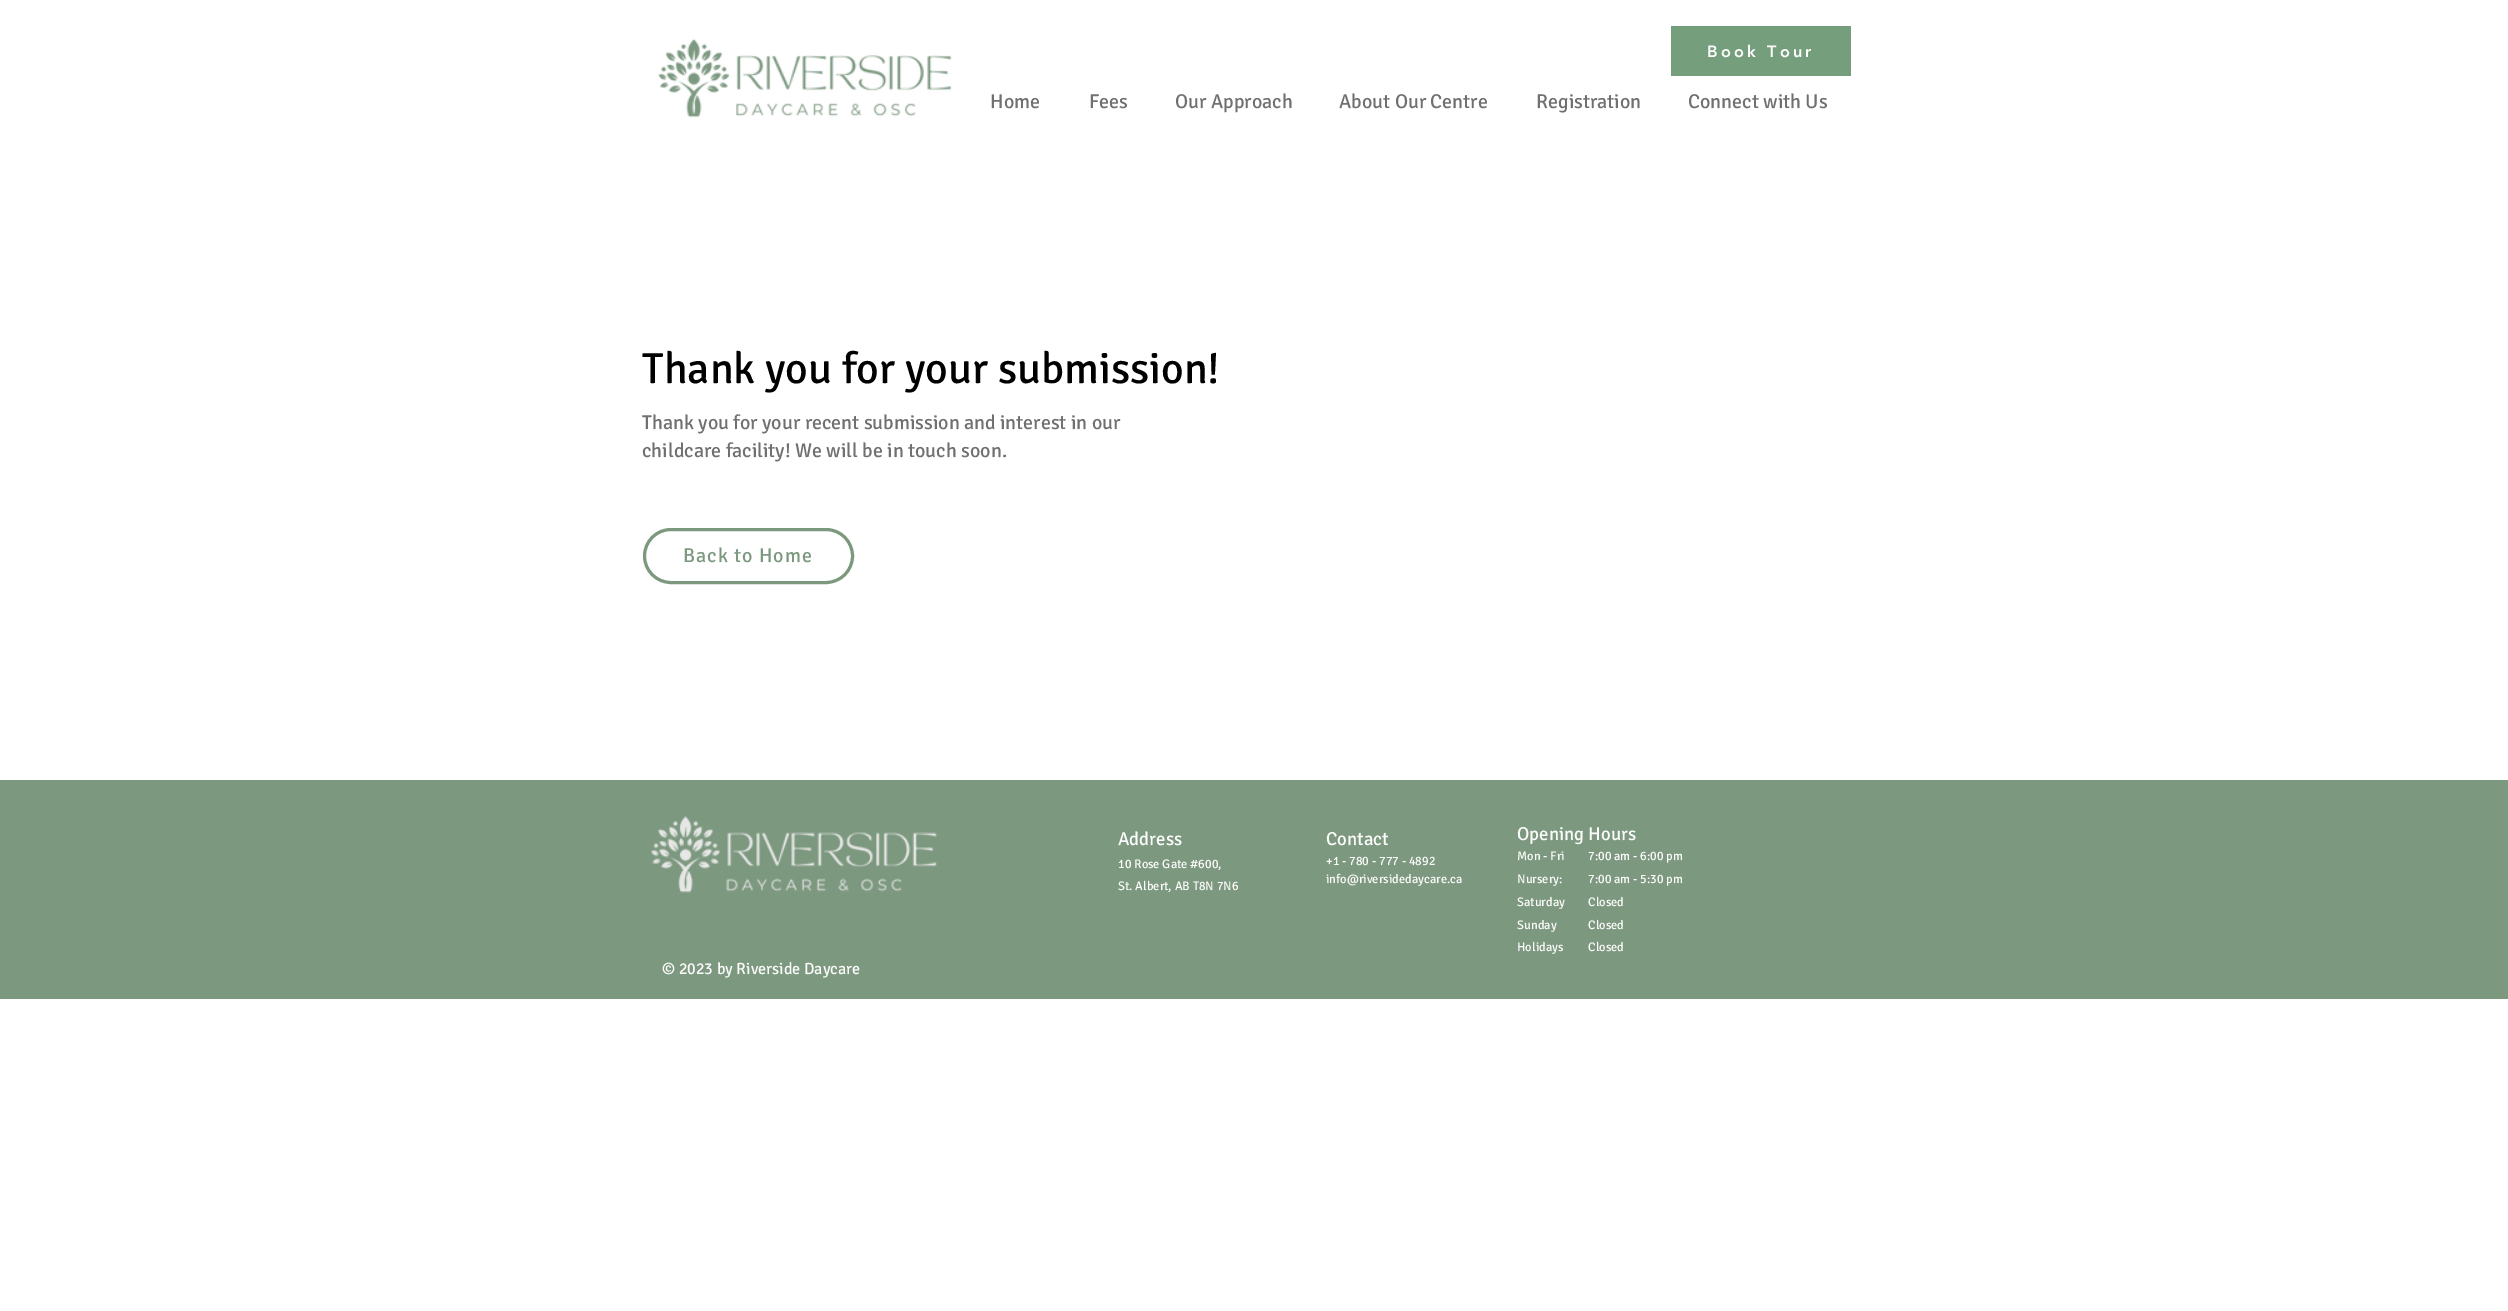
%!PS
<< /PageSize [2508 1311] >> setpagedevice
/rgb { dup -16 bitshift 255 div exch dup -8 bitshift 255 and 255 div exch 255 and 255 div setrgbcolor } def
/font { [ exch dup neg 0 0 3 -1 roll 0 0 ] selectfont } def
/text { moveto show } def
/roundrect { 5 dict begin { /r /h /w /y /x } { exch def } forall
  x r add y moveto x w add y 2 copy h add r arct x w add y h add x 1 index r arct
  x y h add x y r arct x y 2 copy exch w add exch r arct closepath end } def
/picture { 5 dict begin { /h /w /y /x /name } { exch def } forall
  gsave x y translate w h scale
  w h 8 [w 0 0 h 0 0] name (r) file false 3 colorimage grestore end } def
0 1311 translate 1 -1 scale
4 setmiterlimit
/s1 { /Signika-Regular 20 font 16#717070 rgb } def
/s2 { /Signika-Regular 43.75 font 16#000000 rgb } def
/s3 { /Signika-Regular 18.75 font 16#FCFCFC rgb } def
/s4 { /Signika-Regular 12.5 font 16#FCFCFC rgb } def
/s5 { /Signika-Regular 16.25 font 16#FCFCFC rgb } def
16#FFFFFF rgb
0 0 2508 1311 rectfill
(pic1.raw) 658 38 294 80 picture
16#759E7C rgb
1671 26 180 50 rectfill
/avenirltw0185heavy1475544-Black 16.25 font
16#FCFCFC rgb
1707 57 moveto 3.25 0 (Book Tour) ashow
s1
(Home) 990 108 text
(Fees) 1089 108 text
(Our Approach) 1175 108 text
(About Our Centre) 1339 108 text
(Registration) 1536 108 text
(Connect with Us) 1688 108 text
s2
(Thank you for your submission!) 642 383 text
s1
(Thank you for your recent submission and interest in our) 642 429 text
(childcare facility! We will be in touch soon.) 642 457 text
16#7C9980 rgb
3 setlinewidth
644.5 529.5 208 53 26.5 roundrect stroke
683 562 moveto 1 0 (Back to Home) ashow
16#7C987F rgb
0 780 2508 219 rectfill
(pic2.raw) 651 816 286 77 picture
s3
(Address) 1118 845 text
(Contact) 1326 845 text
(Opening Hours) 1517 840 text
s4
(10 Rose Gate #600,) 1118 868 text
(St. Albert, AB T8N 7N6) 1118 890 text
(+1 - 780 - 777 - 4892) 1326 865 text
(Mon - Fri) 1517 860 text
(7:00 am - 6:00 pm) 1588 860 text
(info@riversidedaycare.ca) 1326 883 text
(Nursery:) 1517 883 text
(7:00 am - 5:30 pm) 1588 883 text
(Saturday) 1517 906 text
(Closed) 1588 906 text
(Sunday) 1517 929 text
(Closed) 1588 929 text
(Holidays) 1517 951 text
(Closed) 1588 951 text
s5
(© 2023 by Riverside Daycare) 662 974 text
showpage
